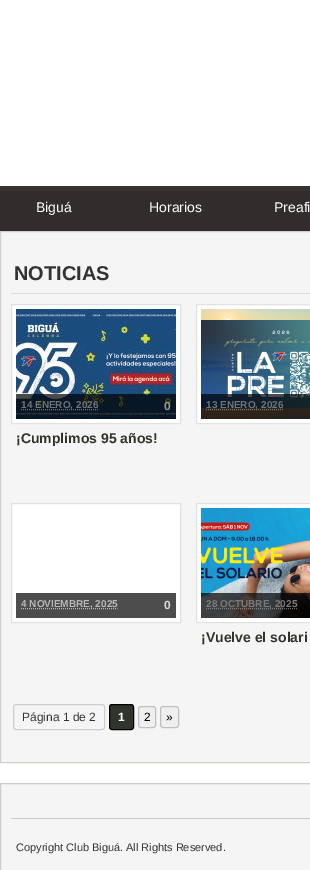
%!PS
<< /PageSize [310 870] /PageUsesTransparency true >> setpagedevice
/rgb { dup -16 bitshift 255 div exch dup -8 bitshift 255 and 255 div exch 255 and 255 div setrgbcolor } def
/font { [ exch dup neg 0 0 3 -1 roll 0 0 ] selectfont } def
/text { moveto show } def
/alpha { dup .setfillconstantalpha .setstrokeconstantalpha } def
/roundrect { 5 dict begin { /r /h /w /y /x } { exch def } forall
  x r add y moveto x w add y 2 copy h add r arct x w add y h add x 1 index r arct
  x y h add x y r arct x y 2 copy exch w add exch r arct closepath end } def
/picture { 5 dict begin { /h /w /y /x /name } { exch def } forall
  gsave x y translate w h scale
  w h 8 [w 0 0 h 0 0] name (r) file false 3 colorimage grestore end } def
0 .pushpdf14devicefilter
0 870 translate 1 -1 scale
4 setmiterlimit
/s1 { /LiberationSans-Regular 14 font 16#FFFFFF rgb } def
/s2 { /LiberationSans-Bold 20 font 16#333333 rgb } def
/s3 { /LiberationSans-Bold 10 font 16#6F7376 rgb } def
/s4 { /LiberationSans-Bold 12 font 16#949899 rgb } def
/s5 { /LiberationSans-Bold 14 font 16#313428 rgb } def
/s6 { /LiberationSans-Bold 10 font 16#B8B8B8 rgb } def
/s7 { /LiberationSans-Bold 12 font 16#DBDBDB rgb } def
/s8 { /LiberationSans-Bold 10 font 16#7A7A7B rgb } def
/s9 { /LiberationSans-Regular 12 font 16#333333 rgb } def
/s10 { /LiberationSans-Bold 12 font 16#FFFFFF rgb } def
/s11 { /LiberationSans-Regular 12 font 16#000000 rgb } def
/s12 { /LiberationSans-Regular 11 font 16#333333 rgb } def
16#FFFFFF rgb
0 0 310 870 rectfill
16#383332 rgb
0 186 310 5 rectfill
16#322C2C rgb
0 191 310 40 rectfill
s1
(Biguá) 36 212 text
(Horarios) 149 212 text
(Preafi) 274 212 text
16#F5F5F5 rgb
0.5 231.5 moveto 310.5 231.5 lineto 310.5 762.5 lineto 0.5 762.5 lineto closepath gsave fill grestore
16#D3D1C7 rgb
stroke
16#DDDDDD rgb
11 293 299 1 rectfill
s2
(NOTICIAS) 14 280 text
16#FFFFFF rgb
11.5 304.5 moveto 180.5 304.5 lineto 180.5 423.5 lineto 11.5 423.5 lineto closepath gsave fill grestore
16#E1E1E1 rgb
stroke
(pic1.raw) 16 309 160 110 picture
0.7 alpha
16#000000 rgb
16 394 160 25 rectfill
16#999999 rgb
[1 1] 0 setdash
21 409.5 moveto 98.5 409.5 lineto stroke
1 alpha
s3
(14 ENERO, 2026) 21 408 text
s4
(0) 164 410 text
s5
(¡Cumplimos 95 años!) 16 443 text
16#FFFFFF rgb
196.5 304.5 moveto 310.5 304.5 lineto 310.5 423.5 lineto 196.5 423.5 lineto closepath gsave fill grestore
16#E1E1E1 rgb
[] 0 setdash
stroke
(pic2.raw) 201 309 109 110 picture
0.7 alpha
16#000000 rgb
201 394 109 25 rectfill
16#999999 rgb
[1 1] 0 setdash
206 409.5 moveto 283.5 409.5 lineto stroke
1 alpha
s3
(13 ENERO, 2026) 206 408 text
16#FFFFFF rgb
11.5 503.5 moveto 180.5 503.5 lineto 180.5 622.5 lineto 11.5 622.5 lineto closepath gsave fill grestore
16#E1E1E1 rgb
[] 0 setdash
stroke
16#4D4D4D rgb
16 593 160 25 rectfill
16#B8B8B8 rgb
[1 1] 0 setdash
21 608.5 moveto 117.5 608.5 lineto stroke
(4 NOVIEMBRE, 2025) 21 607 text
s7
(0) 164 609 text
16#FFFFFF rgb
196.5 503.5 moveto 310.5 503.5 lineto 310.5 622.5 lineto 196.5 622.5 lineto closepath gsave fill grestore
16#E1E1E1 rgb
[] 0 setdash
stroke
(pic3.raw) 201 508 109 110 picture
0.7 alpha
16#000000 rgb
201 593 109 25 rectfill
16#999999 rgb
[1 1] 0 setdash
206 608.5 moveto 297 608.5 lineto stroke
1 alpha
s8
(28 OCTUBRE, 2025) 206 607 text
s5
(¡Vuelve el solari) 201 642 text
16#CCCCCC rgb
[] 0 setdash
13.5 704.5 91 25 2.5 roundrect stroke
s9
(Página 1 de 2) 22 721 text
16#313428 rgb
109.5 704.5 24 25 2.5 roundrect gsave fill grestore
16#000000 rgb
stroke
s10
(1) 118 721 text
16#EFEFEF rgb
138.5 706.5 17 21 2.5 roundrect gsave fill grestore
16#BFBFBF rgb
stroke
s11
(2) 144 721 text
16#EFEFEF rgb
160.5 706.5 18 21 2.5 roundrect gsave fill grestore
16#BFBFBF rgb
stroke
s11
(») 166 721 text
16#F5F5F5 rgb
0.5 783.5 moveto 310.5 783.5 lineto 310.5 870.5 lineto 0.5 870.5 lineto closepath gsave fill grestore
16#CCCCCC rgb
stroke
11 818 299 1 rectfill
s12
(Copyright Club Biguá. All Rights Reserved.) 16 851 text
.poppdf14devicefilter showpage
